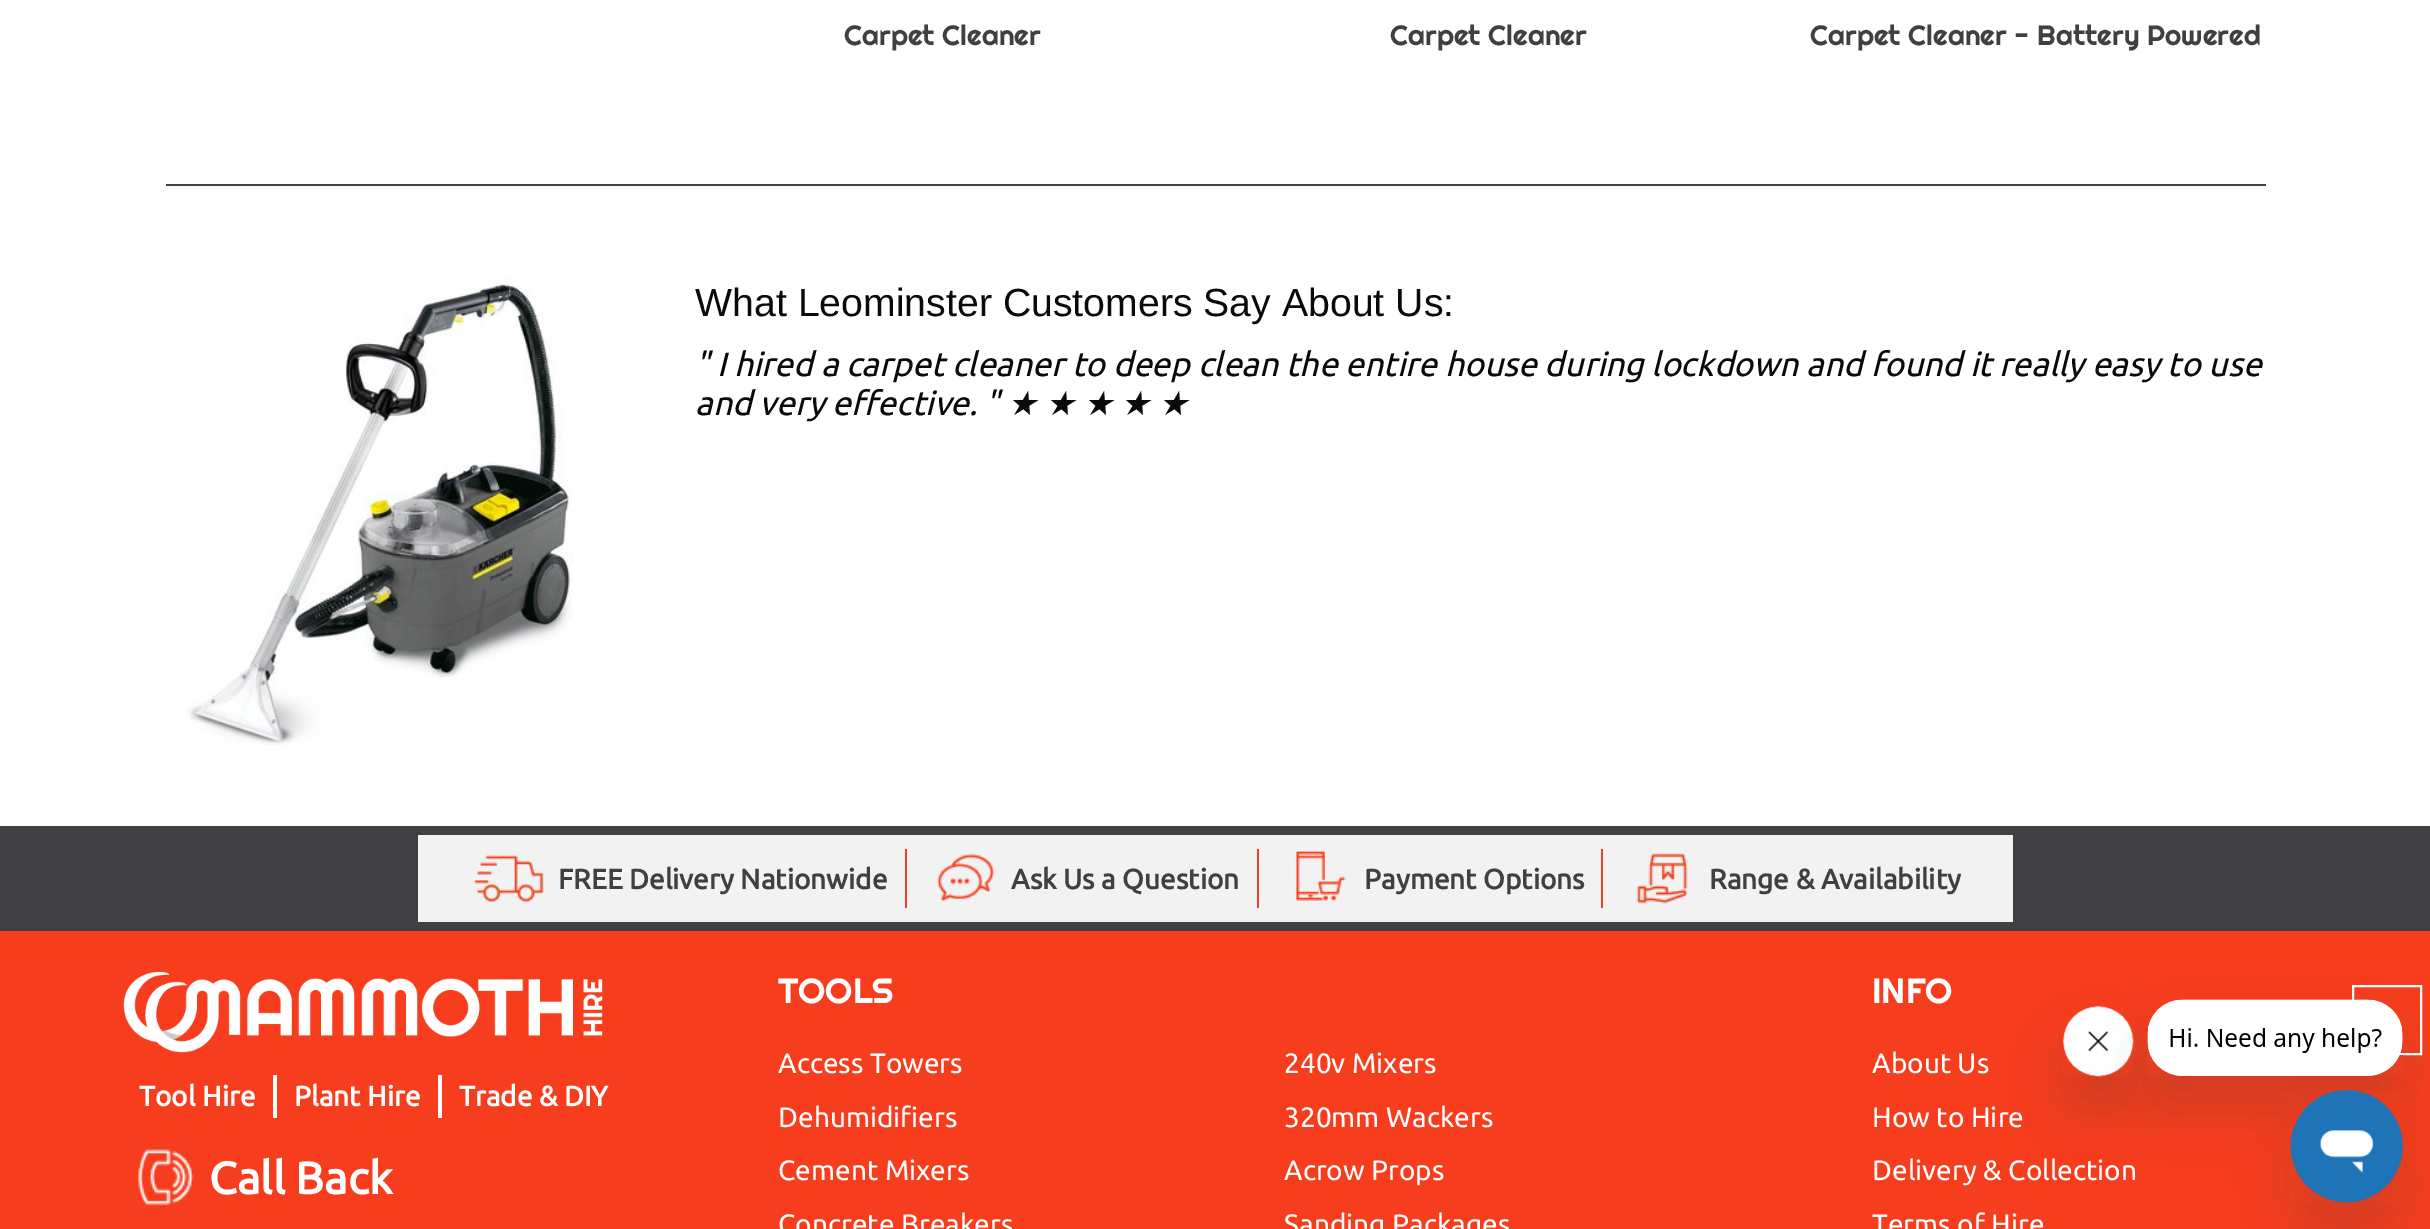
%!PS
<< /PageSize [2430 1229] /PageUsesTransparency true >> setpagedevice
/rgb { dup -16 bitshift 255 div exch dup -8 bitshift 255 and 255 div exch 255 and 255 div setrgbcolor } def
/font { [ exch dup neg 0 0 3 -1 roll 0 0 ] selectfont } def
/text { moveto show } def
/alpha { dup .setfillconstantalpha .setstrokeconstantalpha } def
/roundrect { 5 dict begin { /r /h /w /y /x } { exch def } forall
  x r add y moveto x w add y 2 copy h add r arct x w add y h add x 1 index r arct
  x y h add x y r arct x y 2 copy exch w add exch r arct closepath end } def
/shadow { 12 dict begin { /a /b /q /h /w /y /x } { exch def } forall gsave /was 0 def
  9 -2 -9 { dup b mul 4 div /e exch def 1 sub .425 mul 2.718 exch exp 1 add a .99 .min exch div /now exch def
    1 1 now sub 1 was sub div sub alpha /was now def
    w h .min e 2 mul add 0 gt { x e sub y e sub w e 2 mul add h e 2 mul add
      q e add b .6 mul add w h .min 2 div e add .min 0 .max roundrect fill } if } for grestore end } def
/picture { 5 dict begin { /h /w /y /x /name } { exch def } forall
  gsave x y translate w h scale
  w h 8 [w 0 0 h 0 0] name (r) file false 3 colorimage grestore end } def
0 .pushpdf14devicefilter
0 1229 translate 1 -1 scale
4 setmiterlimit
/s1 { /Righteous-Regular 28 font 16#404042 rgb } def
/s2 { /LiberationSans-Regular 39.25 font 16#0A0A0A rgb } def
/s3 { /Ubuntu-Italic 33.6 font 16#0A0A0A rgb } def
/s4 { /DejaVuSans-Italic 33.6 font 16#0A0A0A rgb } def
/s5 { /Ubuntu-Bold 28 font 16#404042 rgb } def
/s6 { /Ubuntu-Bold 28 font 16#FFFFFF rgb } def
/s7 { /Ubuntu-Bold 45 font 16#FFFFFF rgb } def
/s8 { /Righteous-Regular 35 font 16#FFFFFF rgb } def
/s9 { /Ubuntu-Regular 28 font 16#FFFFFF rgb } def
16#FFFFFF rgb
0 0 2430 1229 rectfill
s1
(Carpet Cleaner) 844 45 text
(Carpet Cleaner) 1390 45 text
(Carpet Cleaner - Battery Powered) 1810 45 text
16#404040 rgb
166 184 2100 2 rectfill
(pic1.raw) 186 276 387 469 picture
s2
(What Leominster Customers Say About Us:) 695 316 text
s3
(" I hired a carpet cleaner to deep clean the entire house during lockdown and found it really easy to use) 695 376 text
(and very effective. ") 695 415 text
s4
(★) 1007 415 text
(★) 1045 415 text
(★) 1083 415 text
(★) 1120 415 text
(★) 1158 415 text
16#404042 rgb
0 826 2430 105 rectfill
16#F2F2F2 rgb
418 835 1595 87 rectfill
16#F63D1D rgb
905 849 2 59 rectfill
(pic2.raw) 474 855 70 47 picture
s5
(FREE Delivery Nationwide) 558 889 text
16#F63D1D rgb
1257 849 2 59 rectfill
(pic3.raw) 937 853 58 49 picture
s5
(Ask Us a Question) 1011 889 text
16#F63D1D rgb
1601 849 2 59 rectfill
(pic4.raw) 1296 851 50 50 picture
s5
(Payment Options) 1364 889 text
(pic5.raw) 1636 853 52 51 picture
(Range & Availability) 1709 889 text
16#F63D1D rgb
0 931 2430 298 rectfill
(pic6.raw) 123 971 480 82 picture
16#FFFFFF rgb
273 1075 4 43 rectfill
(Tool Hire) 139 1106 text
438 1075 4 43 rectfill
(Plant Hire) 294 1106 text
(Trade & DIY) 459 1106 text
(pic7.raw) 138 1149 56 57 picture
s7
(Call Back) 209 1194 text
s8
(TOOLS) 778 1003 text
s9
(Access Towers) 778 1073 text
(Dehumidifiers) 778 1127 text
(Cement Mixers) 778 1180 text
(Concrete Breakers) 778 1234 text
(240v Mixers) 1284 1073 text
(320mm Wackers) 1284 1127 text
(Acrow Props) 1284 1180 text
(Sanding Packages) 1284 1234 text
s8
(INFO) 1872 1003 text
s9
(About Us) 1872 1073 text
(How to Hire) 1872 1127 text
(Delivery & Collection) 1872 1180 text
(Terms of Hire) 1872 1234 text
16#17494D rgb
2063 1041 70 70 35 26 0.15 shadow
(pic9.raw) 2063 1006 71 71 picture
16#FFFFFF rgb
2 setlinewidth
2353 986 68 68 rectstroke
16#17494D rgb
2147 1034 256 77 35 26 0.15 shadow
(pic8.raw) 2147 999 256 77 picture
2291 1125 112 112 56 26 0.15 shadow
(pic10.raw) 2290 1090 113 113 picture
.poppdf14devicefilter showpage
